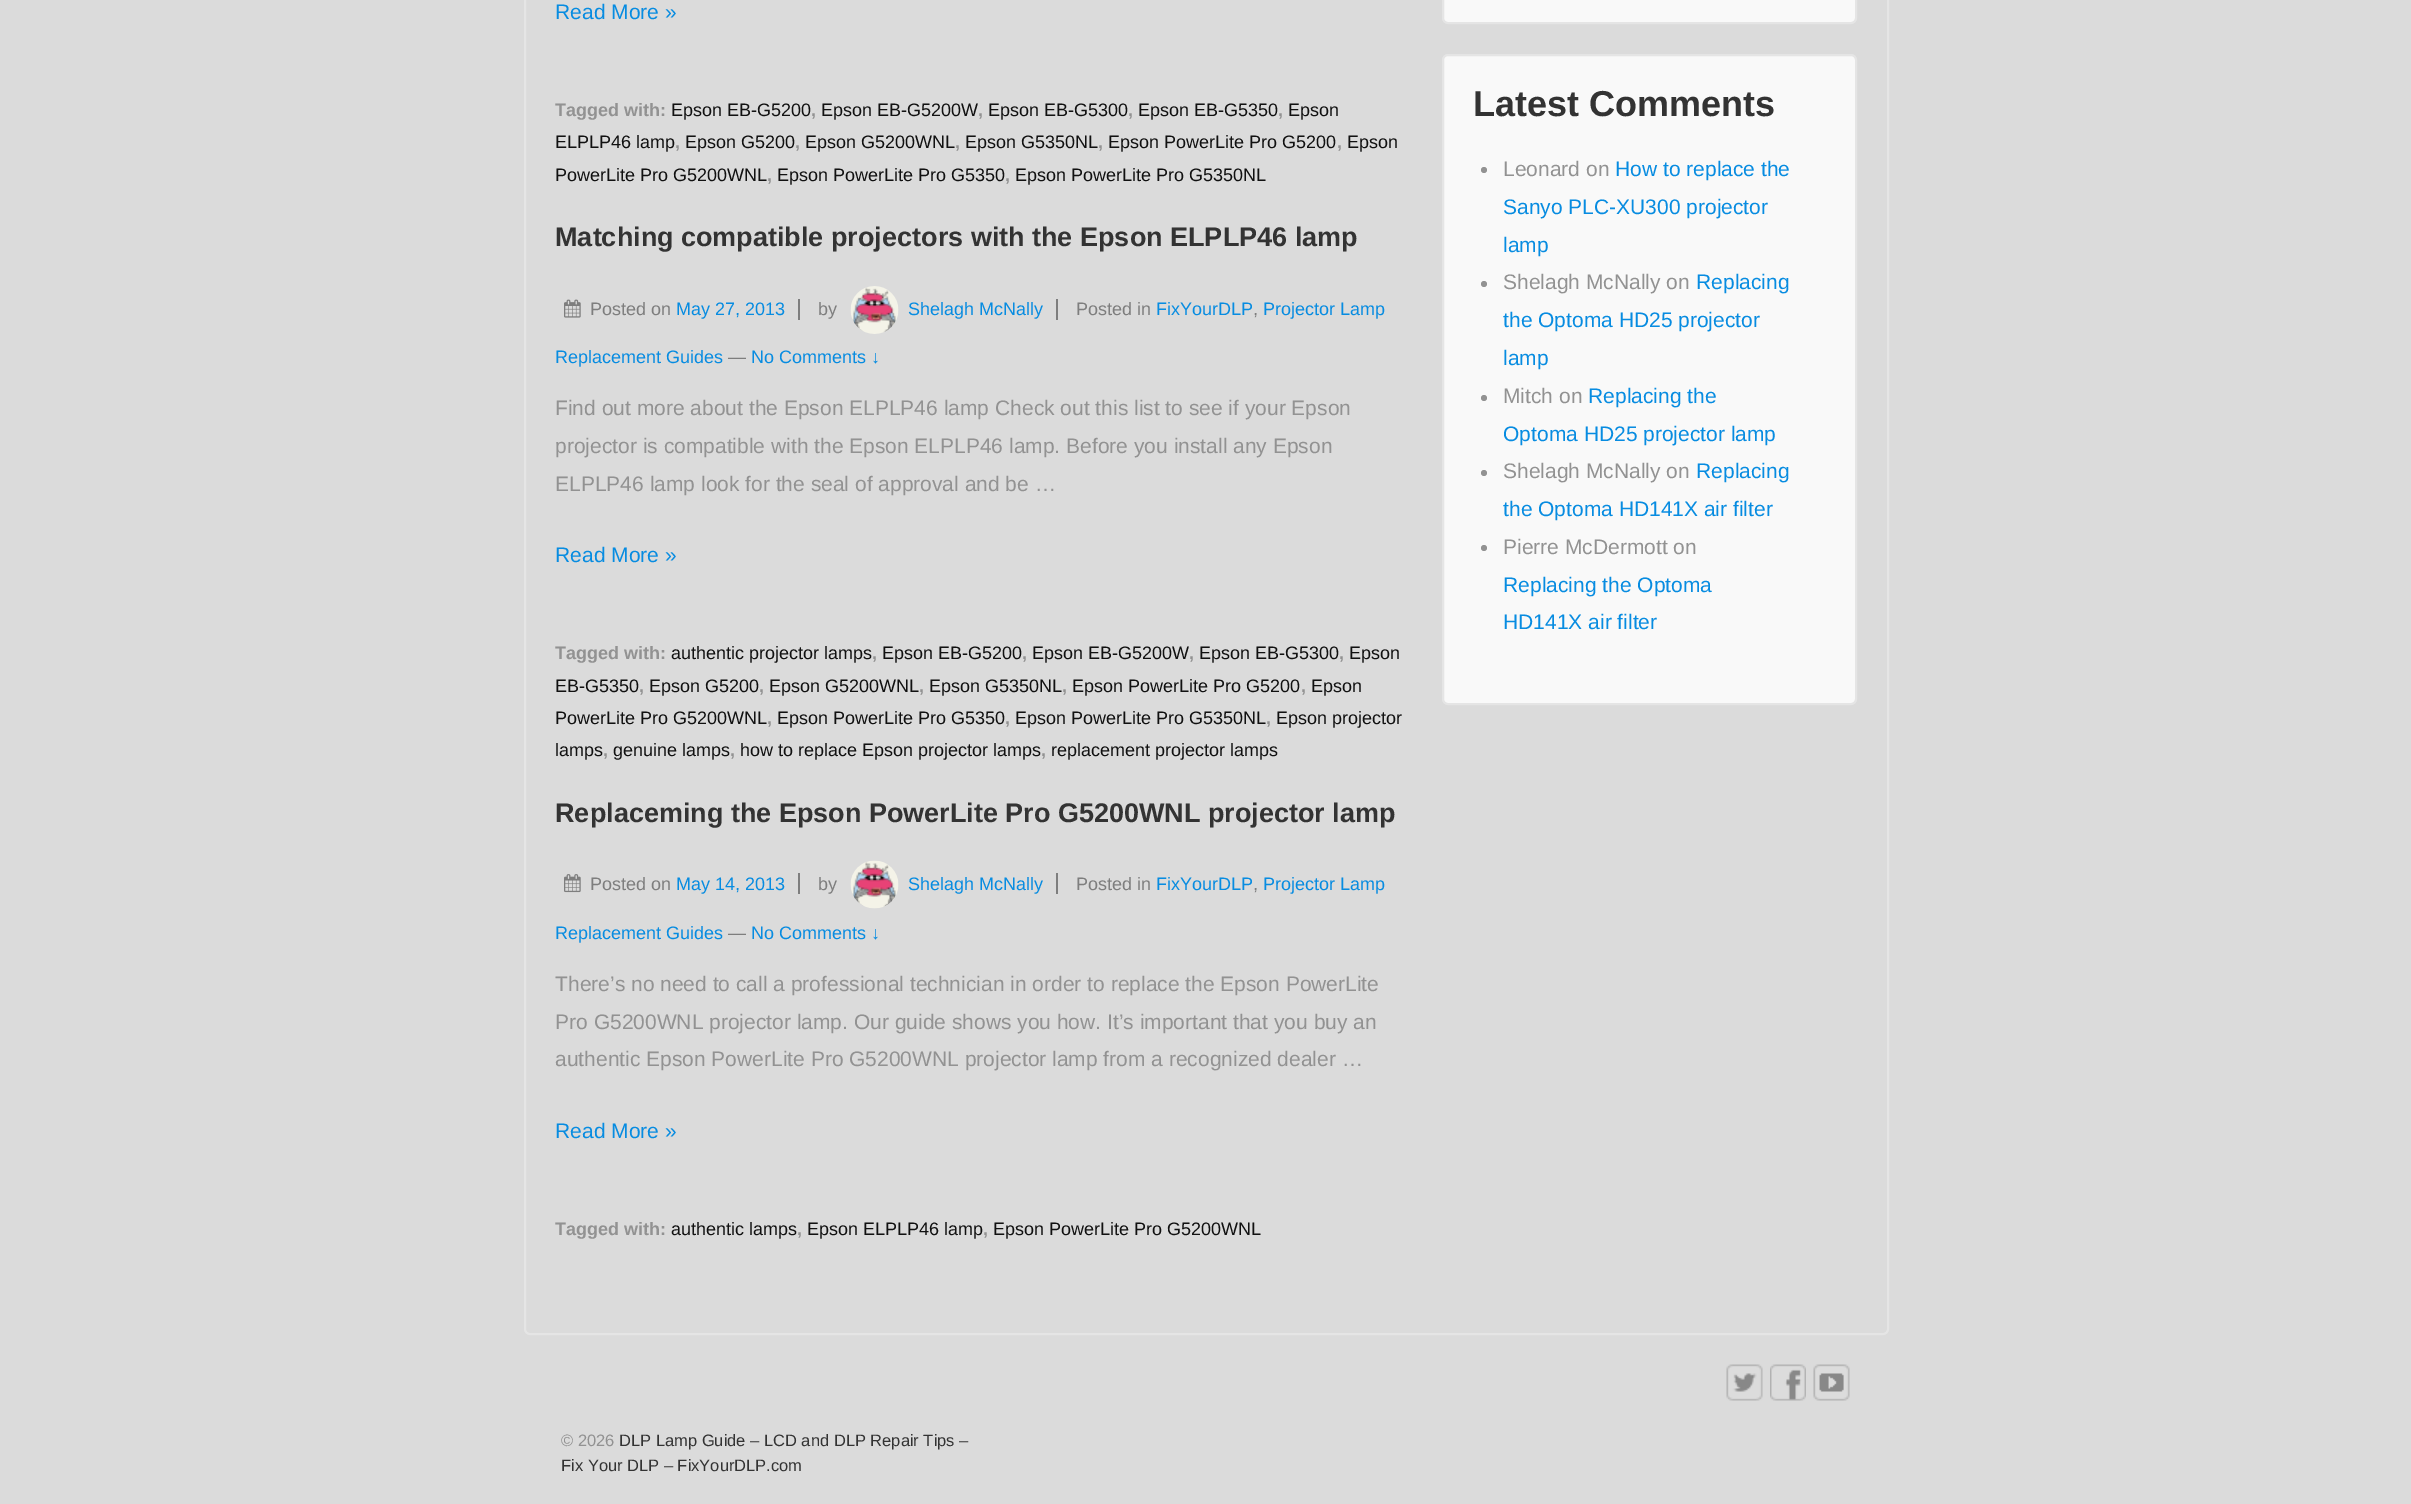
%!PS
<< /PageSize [2411 1504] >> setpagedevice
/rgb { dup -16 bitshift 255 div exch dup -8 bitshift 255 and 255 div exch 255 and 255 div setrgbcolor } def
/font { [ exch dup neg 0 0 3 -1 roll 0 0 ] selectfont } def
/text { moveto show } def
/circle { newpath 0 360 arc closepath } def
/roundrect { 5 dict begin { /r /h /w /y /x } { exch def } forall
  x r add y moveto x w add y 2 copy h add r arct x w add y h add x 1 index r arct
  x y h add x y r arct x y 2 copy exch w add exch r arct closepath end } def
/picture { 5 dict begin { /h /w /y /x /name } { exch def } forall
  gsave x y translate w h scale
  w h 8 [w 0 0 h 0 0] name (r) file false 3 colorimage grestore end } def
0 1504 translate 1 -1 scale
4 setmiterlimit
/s1 { /LiberationSans-Regular 21 font 16#078CE1 rgb } def
/s2 { /LiberationSans-Bold 18 font 16#929292 rgb } def
/s3 { /LiberationSans-Regular 18 font 16#111111 rgb } def
/s4 { /LiberationSans-Bold 27 font 16#333333 rgb } def
/s5 { /LiberationSans-Regular 18 font 16#7E7E7E rgb } def
/s6 { /LiberationSans-Regular 18 font 16#078CE1 rgb } def
/s7 { /LiberationSans-Regular 21 font 16#929292 rgb } def
/s8 { /LiberationSans-Bold 36 font 16#333333 rgb } def
/s9 { /LiberationSans-Regular 16.5 font 16#929292 rgb } def
/s10 { /LiberationSans-Regular 16.5 font 16#333333 rgb } def
16#DBDBDB rgb
0 0 2411 1504 rectfill
16#E5E5E5 rgb
2 setlinewidth
525 -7 1363 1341 5 roundrect stroke
s1
(Read More ») 555 19 text
s2
(Tagged with:) 555 116 text
s3
(Epson EB-G5200) 671 116 text
s2
(,) 811 116 text
s3
(Epson EB-G5200W) 821 116 text
s2
(,) 978 116 text
s3
(Epson EB-G5300) 988 116 text
s2
(,) 1128 116 text
s3
(Epson EB-G5350) 1138 116 text
s2
(,) 1278 116 text
s3
(Epson) 1288 116 text
(ELPLP46 lamp) 555 148 text
s2
(,) 675 148 text
s3
(Epson G5200) 685 148 text
s2
(,) 795 148 text
s3
(Epson G5200WNL) 805 148 text
s2
(,) 955 148 text
s3
(Epson G5350NL) 965 148 text
s2
(,) 1098 148 text
s3
(Epson PowerLite Pro G5200) 1108 148 text
s2
(,) 1337 148 text
s3
(Epson) 1347 148 text
(PowerLite Pro G5200WNL) 555 181 text
s2
(,) 767 181 text
s3
(Epson PowerLite Pro G5350) 777 181 text
s2
(,) 1005 181 text
s3
(Epson PowerLite Pro G5350NL) 1015 181 text
s4
(Matching compatible projectors with the Epson ELPLP46 lamp) 555 246 text
(pic1.raw) 564 299 17 19 picture
s5
(Posted on) 590 315 text
s6
(May 27, 2013) 676 315 text
16#7E7E7E rgb
798 299 2 21 rectfill
(by) 818 315 text
(pic2.raw) 850 286 49 48 picture
s6
(Shelagh McNally) 908 315 text
16#7E7E7E rgb
1056 299 2 21 rectfill
(Posted in) 1076 315 text
s6
(FixYourDLP) 1156 315 text
s5
(,) 1253 315 text
s6
(Projector Lamp) 1263 315 text
(Replacement Guides) 555 363 text
s5
(—) 728 363 text
s6
(No Comments ↓) 751 363 text
s7
(Find out more about the Epson ELPLP46 lamp Check out this list to see if your Epson) 555 415 text
(projector is compatible with the Epson ELPLP46 lamp. Before you install any Epson) 555 453 text
(ELPLP46 lamp look for the seal of approval and be …) 555 491 text
s1
(Read More ») 555 562 text
s2
(Tagged with:) 555 659 text
s3
(authentic projector lamps) 671 659 text
s2
(,) 872 659 text
s3
(Epson EB-G5200) 882 659 text
s2
(,) 1022 659 text
s3
(Epson EB-G5200W) 1032 659 text
s2
(,) 1189 659 text
s3
(Epson EB-G5300) 1199 659 text
s2
(,) 1339 659 text
s3
(Epson) 1349 659 text
(EB-G5350) 555 692 text
s2
(,) 639 692 text
s3
(Epson G5200) 649 692 text
s2
(,) 759 692 text
s3
(Epson G5200WNL) 769 692 text
s2
(,) 919 692 text
s3
(Epson G5350NL) 929 692 text
s2
(,) 1062 692 text
s3
(Epson PowerLite Pro G5200) 1072 692 text
s2
(,) 1301 692 text
s3
(Epson) 1311 692 text
(PowerLite Pro G5200WNL) 555 724 text
s2
(,) 767 724 text
s3
(Epson PowerLite Pro G5350) 777 724 text
s2
(,) 1005 724 text
s3
(Epson PowerLite Pro G5350NL) 1015 724 text
s2
(,) 1266 724 text
s3
(Epson projector) 1276 724 text
(lamps) 555 756 text
s2
(,) 603 756 text
s3
(genuine lamps) 613 756 text
s2
(,) 730 756 text
s3
(how to replace Epson projector lamps) 740 756 text
s2
(,) 1041 756 text
s3
(replacement projector lamps) 1051 756 text
s4
(Replaceming the Epson PowerLite Pro G5200WNL projector lamp) 555 822 text
(pic3.raw) 564 874 17 19 picture
s5
(Posted on) 590 890 text
s6
(May 14, 2013) 676 890 text
16#7E7E7E rgb
798 873 2 21 rectfill
(by) 818 890 text
(pic4.raw) 850 860 49 49 picture
s6
(Shelagh McNally) 908 890 text
16#7E7E7E rgb
1056 873 2 21 rectfill
(Posted in) 1076 890 text
s6
(FixYourDLP) 1156 890 text
s5
(,) 1253 890 text
s6
(Projector Lamp) 1263 890 text
(Replacement Guides) 555 939 text
s5
(—) 728 939 text
s6
(No Comments ↓) 751 939 text
s7
(There’s no need to call a professional technician in order to replace the Epson PowerLite) 555 991 text
(Pro G5200WNL projector lamp. Our guide shows you how. It’s important that you buy an) 555 1029 text
(authentic Epson PowerLite Pro G5200WNL projector lamp from a recognized dealer …) 555 1066 text
s1
(Read More ») 555 1138 text
s2
(Tagged with:) 555 1235 text
s3
(authentic lamps) 671 1235 text
s2
(,) 797 1235 text
s3
(Epson ELPLP46 lamp) 807 1235 text
s2
(,) 983 1235 text
s3
(Epson PowerLite Pro G5200WNL) 993 1235 text
16#F9F9F9 rgb
1443 -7 413 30 5 roundrect gsave fill grestore
16#E5E5E5 rgb
stroke
16#F9F9F9 rgb
1443 55 413 649 5 roundrect gsave fill grestore
16#E5E5E5 rgb
stroke
s8
(Latest Comments) 1473 116 text
16#929292 rgb
1484 170 3 circle fill
s7
(Leonard on) 1503 176 text
s1
(How to replace the) 1615 176 text
(Sanyo PLC-XU300 projector) 1503 214 text
(lamp) 1503 252 text
16#929292 rgb
1484 284 3 circle fill
(Shelagh McNally on) 1503 289 text
s1
(Replacing) 1696 289 text
(the Optoma HD25 projector) 1503 327 text
(lamp) 1503 365 text
16#929292 rgb
1484 398 3 circle fill
(Mitch on) 1503 403 text
s1
(Replacing the) 1588 403 text
(Optoma HD25 projector lamp) 1503 441 text
16#929292 rgb
1484 473 3 circle fill
(Shelagh McNally on) 1503 478 text
s1
(Replacing) 1696 478 text
(the Optoma HD141X air filter) 1503 516 text
16#929292 rgb
1484 548 3 circle fill
(Pierre McDermott on) 1503 554 text
s1
(Replacing the Optoma) 1503 592 text
(HD141X air filter) 1503 629 text
(pic5.raw) 1726 1364 37 37 picture
(pic6.raw) 1770 1364 36 37 picture
(pic7.raw) 1813 1364 37 37 picture
s9
(© 2026) 561 1446 text
s10
(DLP Lamp Guide – LCD and DLP Repair Tips –) 619 1446 text
(Fix Your DLP – FixYourDLP.com) 561 1471 text
showpage
